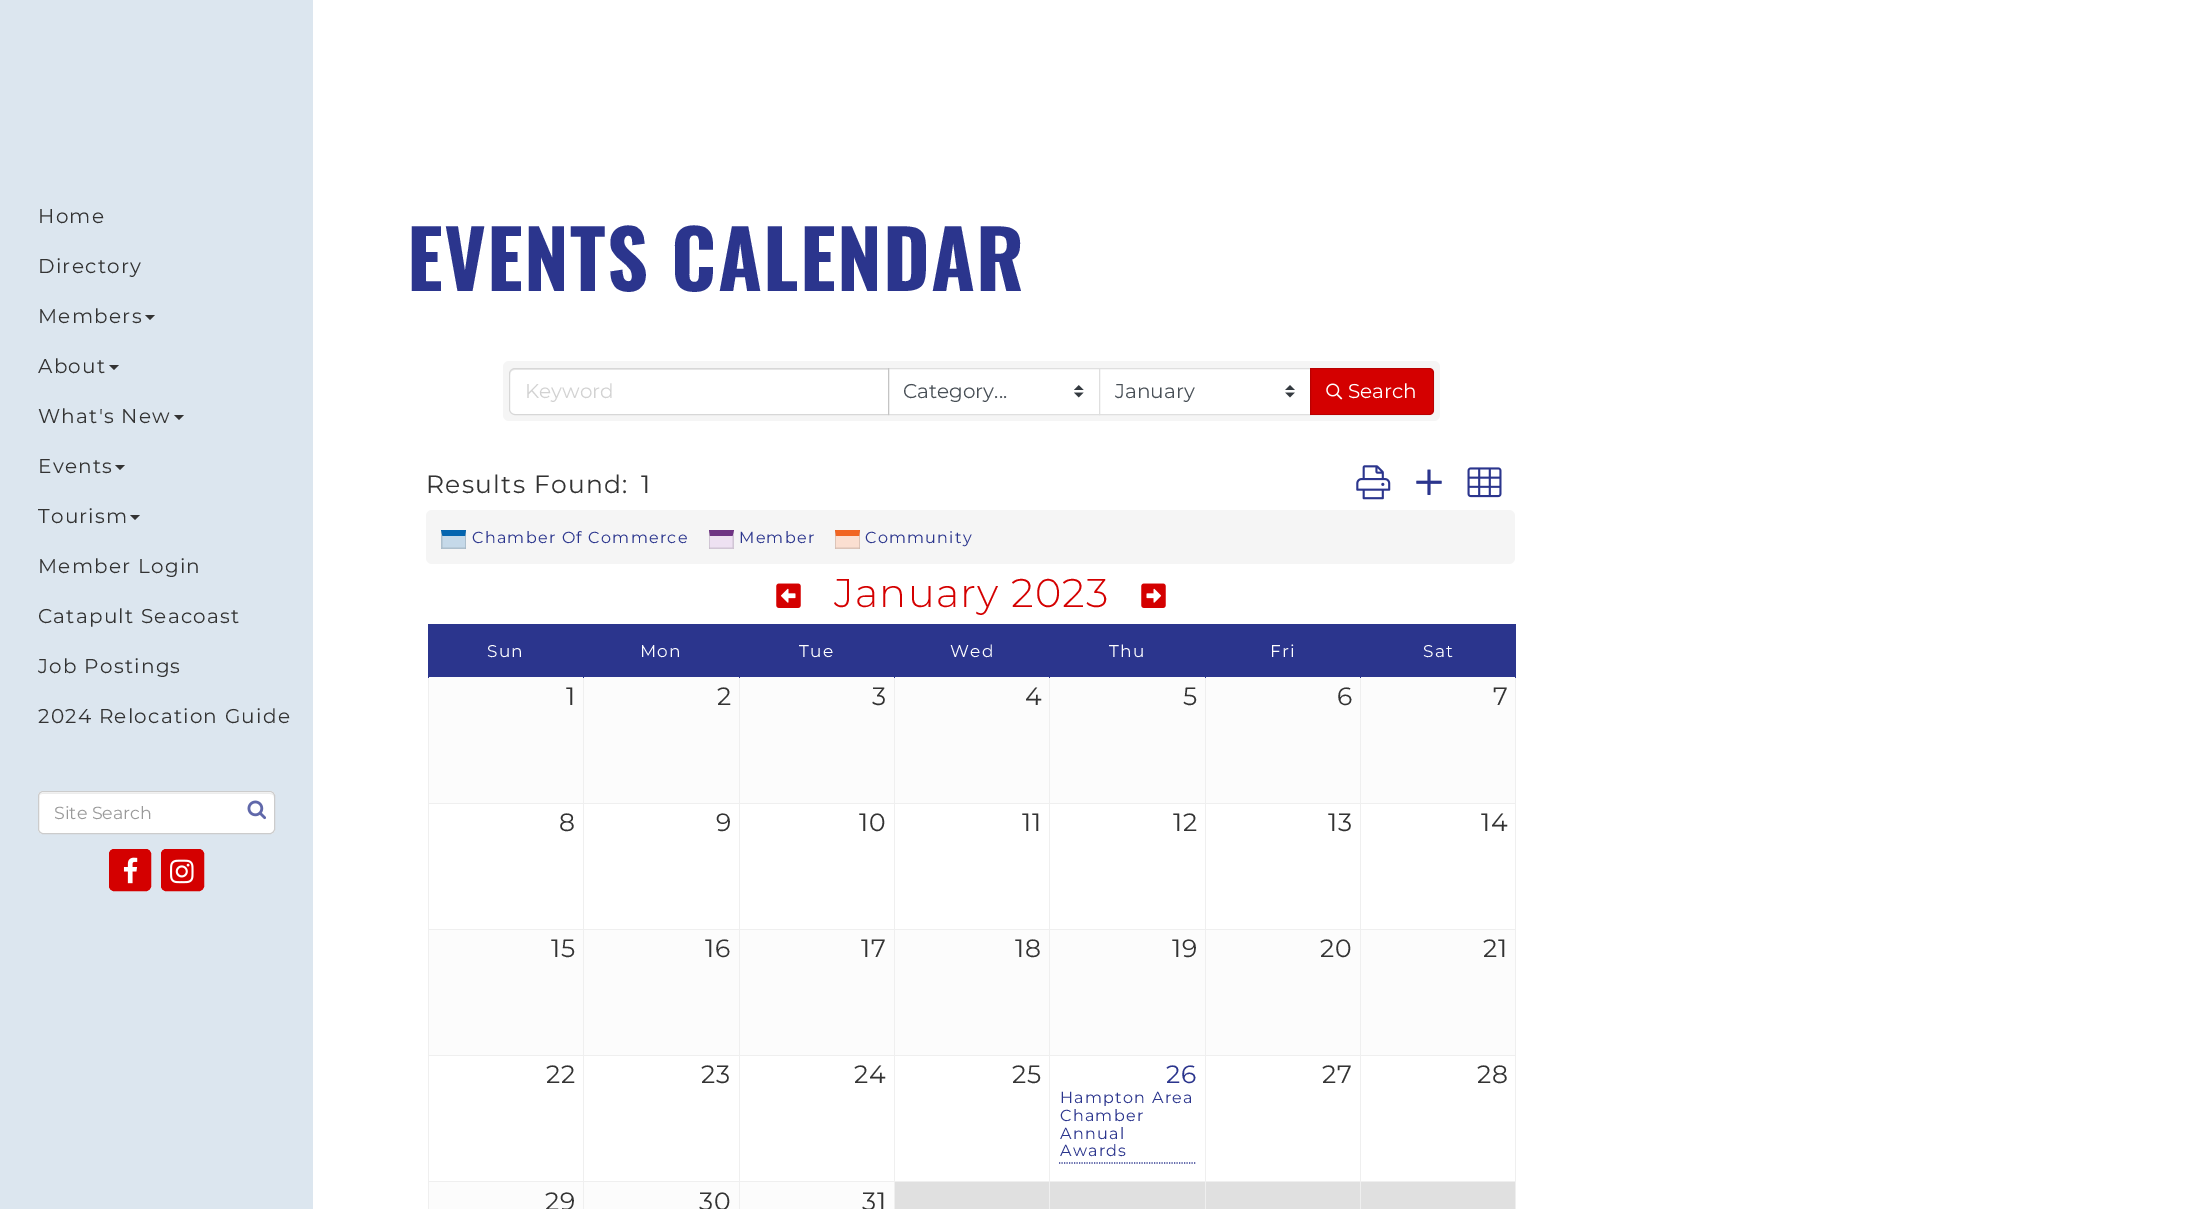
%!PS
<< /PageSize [2211 1209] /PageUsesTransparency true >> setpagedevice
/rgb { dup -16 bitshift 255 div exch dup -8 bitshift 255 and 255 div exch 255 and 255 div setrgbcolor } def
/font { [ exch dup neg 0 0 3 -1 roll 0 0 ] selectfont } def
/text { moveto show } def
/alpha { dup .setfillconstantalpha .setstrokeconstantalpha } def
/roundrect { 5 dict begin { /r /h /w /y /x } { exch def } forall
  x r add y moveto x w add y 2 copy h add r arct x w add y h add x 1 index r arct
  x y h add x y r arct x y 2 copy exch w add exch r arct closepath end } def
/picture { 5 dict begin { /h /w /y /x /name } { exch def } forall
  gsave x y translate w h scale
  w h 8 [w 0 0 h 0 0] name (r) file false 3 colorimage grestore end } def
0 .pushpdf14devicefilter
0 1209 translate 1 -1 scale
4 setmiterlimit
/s1 { /Montserrat-Regular 17.5 font 16#999999 rgb } def
/s2 { /Montserrat-Regular 20 font 16#D2D2D2 rgb } def
/s3 { /Montserrat-Regular 20 font 16#495057 rgb } def
/s4 { /Montserrat-Regular 20 font 16#FFFFFF rgb } def
16#FFFFFF rgb
0 0 2211 1209 rectfill
16#DCE6EF rgb
0 0 313 1209 rectfill
/Montserrat-Regular 20 font
16#333333 rgb
38 223 moveto 1.25 0 (Home) ashow
38 273 moveto 1.25 0 (Directory) ashow
38 323 moveto 1.25 0 (Members) ashow
145 315 moveto 155 315 lineto 150 320 lineto closepath fill
38 373 moveto 1.25 0 (About) ashow
109 365 moveto 119 365 lineto 114 370 lineto closepath fill
38 423 moveto 1.25 0 (What's New) ashow
174 415 moveto 184 415 lineto 179 420 lineto closepath fill
38 473 moveto 1.25 0 (Events) ashow
115 465 moveto 125 465 lineto 120 470 lineto closepath fill
38 523 moveto 1.25 0 (Tourism) ashow
130 515 moveto 140 515 lineto 135 520 lineto closepath fill
38 573 moveto 1.25 0 (Member Login) ashow
38 623 moveto 1.25 0 (Catapult Seacoast) ashow
38 673 moveto 1.25 0 (Job Postings) ashow
38 723 moveto 1.25 0 (2024 Relocation Guide) ashow
16#FFFFFF rgb
38 791 237 43 5 roundrect fill
16#ECECEC rgb
42 794 moveto 270 794 lineto 272 794 274 795 274 798 curveto 274 795 273 793 270 793 curveto 43 793 lineto 40 793 39 795 39 798 curveto 39 795 40 794 42 794 curveto closepath fill
16#CCCCCC rgb
38.5 791.5 236 42 4.5 roundrect stroke
s1
(Site Search) 54 819 text
(pic1.raw) 247 800 19 20 picture
16#D40000 rgb
109.5 849.5 41 41 4.5 roundrect gsave fill grestore
stroke
(pic2.raw) 123 857 15 27 picture
161.5 849.5 42 41 4.5 roundrect gsave fill grestore
stroke
(pic3.raw) 170 859 24 25 picture
/Oswald-Bold 80 font
16#2B358D rgb
407 291 moveto 1.25 0 (EVENTS CALENDAR) ashow
16#F5F5F5 rgb
503 361 937 60 6 roundrect fill
16#FFFFFF rgb
515 369 moveto 888 369 lineto 888 414 lineto 515 414 lineto 512 414 510 412 510 409 curveto 510 374 lineto 510 371 512 369 515 369 curveto closepath fill
16#ECECEC rgb
515 370 moveto 888 370 lineto 888 369 lineto 515 369 lineto 512 369 510 372 510 375 curveto 510 372 512 370 515 370 curveto closepath fill
16#FFFFFF rgb
889 369 210 45 rectfill
(pic4.raw) 1074 385 10 13 picture
16#DFDFDF rgb
888.5 368.5 211 46 rectstroke
0.12 alpha
16#000000 rgb
515 368.5 moveto 888.5 368.5 lineto 888.5 414.5 lineto 515 414.5 lineto 512 414.5 509.5 412 509.5 409 curveto 509.5 374 lineto 509.5 371 512 368.5 515 368.5 curveto closepath stroke
1 alpha
s2
(Keyword) 525 398 text
s3
(Category...) 903 398 text
16#FFFFFF rgb
1100 369 210 45 rectfill
(pic5.raw) 1285 385 10 13 picture
16#DFDFDF rgb
1099.5 368.5 211 46 rectstroke
s3
(January) 1115 398 text
16#D40000 rgb
1310 368 moveto 1429 368 lineto 1432 368 1434 370 1434 373 curveto 1434 410 lineto 1434 413 1432 415 1429 415 curveto 1310 415 lineto closepath fill
0.12 alpha
16#000000 rgb
1310.5 368.5 moveto 1429 368.5 lineto 1431.5 368.5 1433.5 370.5 1433.5 373 curveto 1433.5 410 lineto 1433.5 412.5 1431.5 414.5 1429 414.5 curveto 1310.5 414.5 lineto closepath stroke
1 alpha
(pic6.raw) 1326 383 17 17 picture
s4
(Search) 1348 398 text
/Montserrat-Regular 25 font
16#333333 rgb
426 493 moveto 1.25 0 (Results Found:) ashow
641 493 moveto 1.25 0 (1) ashow
(pic7.raw) 1356 465 35 35 picture
(pic8.raw) 1416 469 26 26 picture
(pic9.raw) 1467 467 35 31 picture
16#F5F5F5 rgb
426 510 1089 54 6 roundrect fill
16#C5D9E9 rgb
441 530 25 19 rectfill
16#0465AF rgb
441 530 moveto 466 530 lineto 465 536 lineto 442.5 536 lineto closepath fill
0.12 alpha
16#000000 rgb
466 530 moveto 466 549 lineto 465 547.5 lineto 465 536 lineto closepath fill
466 549 moveto 441 549 lineto 442.5 547.5 lineto 465 547.5 lineto closepath fill
441 549 moveto 441 530 lineto 442.5 536 lineto 442.5 547.5 lineto closepath fill
/Montserrat-Regular 16 font
1 alpha
16#2B358D rgb
472 543 moveto 1.25 0 (Chamber Of Commerce) ashow
16#EEE1F2 rgb
709 530 25 19 rectfill
16#6F3484 rgb
709 530 moveto 734 530 lineto 732.5 536 lineto 710 536 lineto closepath fill
0.12 alpha
16#000000 rgb
734 530 moveto 734 549 lineto 732.5 547.5 lineto 732.5 536 lineto closepath fill
734 549 moveto 709 549 lineto 710 547.5 lineto 732.5 547.5 lineto closepath fill
709 549 moveto 709 530 lineto 710 536 lineto 710 547.5 lineto closepath fill
1 alpha
16#2B358D rgb
739 543 moveto 1.25 0 (Member) ashow
16#FBDFD1 rgb
835 530 25 19 rectfill
16#F16522 rgb
835 530 moveto 860 530 lineto 859 536 lineto 836 536 lineto closepath fill
0.12 alpha
16#000000 rgb
860 530 moveto 860 549 lineto 859 547.5 lineto 859 536 lineto closepath fill
860 549 moveto 835 549 lineto 836 547.5 lineto 859 547.5 lineto closepath fill
835 549 moveto 835 530 lineto 836 536 lineto 836 547.5 lineto closepath fill
1 alpha
16#2B358D rgb
865 543 moveto 1.25 0 (Community) ashow
(pic10.raw) 776 583 25 25 picture
/Montserrat-Light 40 font
16#D40000 rgb
834 607 moveto 1.25 0 (January 2023) ashow
(pic11.raw) 1141 583 25 25 picture
16#2B358D rgb
429 625 154 51 rectfill
1360 624 156 1 rectfill
16#EFEFEF rgb
1360 803 156 1 rectfill
1360 929 156 1 rectfill
1360 1055 156 1 rectfill
1360 1181 156 1 rectfill
1515 1181 1 28 rectfill
1515 1055 1 128 rectfill
1515 929 1 127 rectfill
1515 676 1 254 rectfill
16#2B358D rgb
1515 624 1 54 rectfill
16#FCFCFC rgb
429 677 1086 126 rectfill
429 930 1086 125 rectfill
16#EFEFEF rgb
1360 1181 1 28 rectfill
1205 1181 156 1 rectfill
1360 1055 1 128 rectfill
1205 1055 156 1 rectfill
1360 929 1 127 rectfill
1205 929 156 1 rectfill
1360 803 1 127 rectfill
1205 803 156 1 rectfill
1360 676 1 128 rectfill
16#2B358D rgb
1360 676 156 1 rectfill
1360 624 1 54 rectfill
1205 624 156 1 rectfill
16#EFEFEF rgb
1205 1181 1 28 rectfill
1049 1181 157 1 rectfill
1205 1055 1 128 rectfill
1049 1055 157 1 rectfill
1205 929 1 127 rectfill
1049 929 157 1 rectfill
1205 803 1 127 rectfill
1049 803 157 1 rectfill
1205 676 1 128 rectfill
16#2B358D rgb
1205 676 156 1 rectfill
1205 624 1 54 rectfill
1049 624 157 1 rectfill
16#EFEFEF rgb
1049 1181 1 28 rectfill
894 1181 156 1 rectfill
1049 1055 1 128 rectfill
894 1055 156 1 rectfill
1049 929 1 127 rectfill
894 929 156 1 rectfill
1049 803 1 127 rectfill
894 803 156 1 rectfill
1049 676 1 128 rectfill
16#2B358D rgb
1049 676 157 1 rectfill
1049 624 1 54 rectfill
894 624 156 1 rectfill
16#EFEFEF rgb
894 1181 1 28 rectfill
739 1181 156 1 rectfill
894 1055 1 128 rectfill
739 1055 156 1 rectfill
894 929 1 127 rectfill
739 929 156 1 rectfill
894 803 1 127 rectfill
739 803 156 1 rectfill
894 676 1 128 rectfill
16#2B358D rgb
894 676 156 1 rectfill
894 624 1 54 rectfill
739 624 156 1 rectfill
16#FCFCFC rgb
429 1182 465 27 rectfill
16#EFEFEF rgb
739 1181 1 28 rectfill
583 1181 157 1 rectfill
739 1055 1 128 rectfill
583 1055 157 1 rectfill
739 929 1 127 rectfill
583 929 157 1 rectfill
739 803 1 127 rectfill
583 803 157 1 rectfill
739 676 1 128 rectfill
16#2B358D rgb
739 676 156 1 rectfill
739 624 1 54 rectfill
583 624 157 1 rectfill
16#EFEFEF rgb
583 1181 1 28 rectfill
428 1181 156 1 rectfill
583 1055 1 128 rectfill
428 1055 156 1 rectfill
583 929 1 127 rectfill
428 929 156 1 rectfill
583 803 1 127 rectfill
428 803 156 1 rectfill
583 676 1 128 rectfill
16#2B358D rgb
583 676 157 1 rectfill
583 624 1 54 rectfill
428 624 156 1 rectfill
16#EFEFEF rgb
428 1181 1 28 rectfill
428 1055 1 128 rectfill
428 929 1 127 rectfill
428 676 1 254 rectfill
16#2B358D rgb
428 676 156 1 rectfill
428 624 1 54 rectfill
/Montserrat-Regular 17 font
16#FFFFFF rgb
487 657 moveto 1.25 0 (Sun) ashow
16#2B358D rgb
584 625 155 51 rectfill
16#FFFFFF rgb
640 657 moveto 1.25 0 (Mon) ashow
16#2B358D rgb
740 625 154 51 rectfill
16#FFFFFF rgb
799 657 moveto 1.25 0 (Tue) ashow
16#2B358D rgb
895 625 154 51 rectfill
16#FFFFFF rgb
950 657 moveto 1.25 0 (Wed) ashow
16#2B358D rgb
1050 625 155 51 rectfill
16#FFFFFF rgb
1109 657 moveto 1.25 0 (Thu) ashow
16#2B358D rgb
1206 625 154 51 rectfill
16#FFFFFF rgb
1270 657 moveto 1.25 0 (Fri) ashow
16#2B358D rgb
1361 625 154 51 rectfill
16#FFFFFF rgb
1423 657 moveto 1.25 0 (Sat) ashow
/Montserrat-Regular 25 font
16#333333 rgb
566 705 moveto 1.25 0 (1) ashow
717 705 moveto 1.25 0 (2) ashow
872 705 moveto 1.25 0 (3) ashow
1025 705 moveto 1.25 0 (4) ashow
1183 705 moveto 1.25 0 (5) ashow
1337 705 moveto 1.25 0 (6) ashow
1493 705 moveto 1.25 0 (7) ashow
559 831 moveto 1.25 0 (8) ashow
716 831 moveto 1.25 0 (9) ashow
859 831 moveto 1.25 0 (10) ashow
1022 831 moveto 1.25 0 (11) ashow
1173 831 moveto 1.25 0 (12) ashow
1328 831 moveto 1.25 0 (13) ashow
1481 831 moveto 1.25 0 (14) ashow
551 957 moveto 1.25 0 (15) ashow
705 957 moveto 1.25 0 (16) ashow
861 957 moveto 1.25 0 (17) ashow
1015 957 moveto 1.25 0 (18) ashow
1172 957 moveto 1.25 0 (19) ashow
1320 957 moveto 1.25 0 (20) ashow
1483 957 moveto 1.25 0 (21) ashow
546 1083 moveto 1.25 0 (22) ashow
701 1083 moveto 1.25 0 (23) ashow
854 1083 moveto 1.25 0 (24) ashow
1012 1083 moveto 1.25 0 (25) ashow
16#2B358D rgb
1166 1083 moveto 1.25 0 (26) ashow
1.2 setlinewidth
[1.25 1.25] 0 setdash
1059 1163 moveto 1196 1163 lineto stroke
/Montserrat-Regular 16 font
1060 1103 moveto 1.25 0 (Hampton Area) ashow
1060 1121 moveto 1.25 0 (Chamber) ashow
1060 1139 moveto 1.25 0 (Annual) ashow
1060 1156 moveto 1.25 0 (Awards) ashow
/Montserrat-Regular 25 font
16#333333 rgb
1322 1083 moveto 1.25 0 (27) ashow
1477 1083 moveto 1.25 0 (28) ashow
545 1210 moveto 1.25 0 (29) ashow
699 1210 moveto 1.25 0 (30) ashow
862 1210 moveto 1.25 0 (31) ashow
16#E0E0E0 rgb
895 1182 154 27 rectfill
1050 1182 155 27 rectfill
1206 1182 154 27 rectfill
1361 1182 154 27 rectfill
.poppdf14devicefilter showpage
